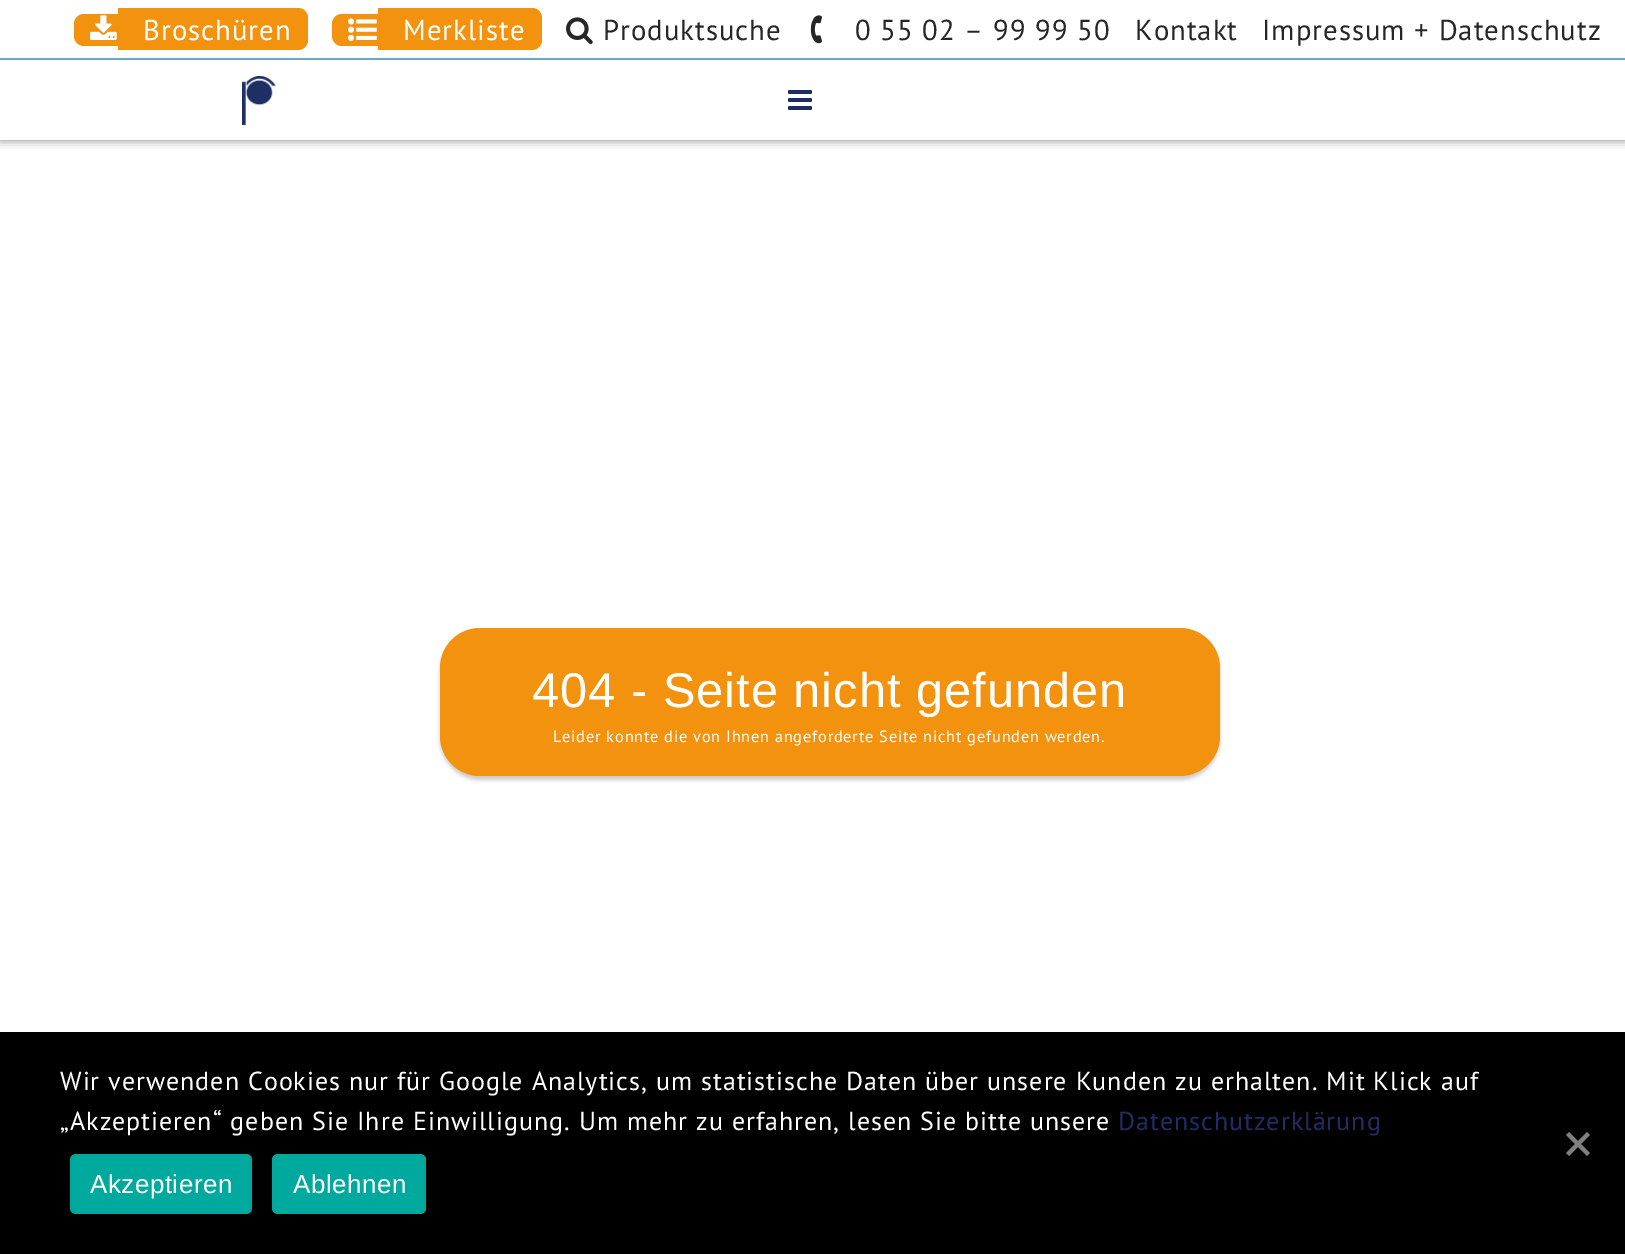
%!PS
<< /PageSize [1625 1254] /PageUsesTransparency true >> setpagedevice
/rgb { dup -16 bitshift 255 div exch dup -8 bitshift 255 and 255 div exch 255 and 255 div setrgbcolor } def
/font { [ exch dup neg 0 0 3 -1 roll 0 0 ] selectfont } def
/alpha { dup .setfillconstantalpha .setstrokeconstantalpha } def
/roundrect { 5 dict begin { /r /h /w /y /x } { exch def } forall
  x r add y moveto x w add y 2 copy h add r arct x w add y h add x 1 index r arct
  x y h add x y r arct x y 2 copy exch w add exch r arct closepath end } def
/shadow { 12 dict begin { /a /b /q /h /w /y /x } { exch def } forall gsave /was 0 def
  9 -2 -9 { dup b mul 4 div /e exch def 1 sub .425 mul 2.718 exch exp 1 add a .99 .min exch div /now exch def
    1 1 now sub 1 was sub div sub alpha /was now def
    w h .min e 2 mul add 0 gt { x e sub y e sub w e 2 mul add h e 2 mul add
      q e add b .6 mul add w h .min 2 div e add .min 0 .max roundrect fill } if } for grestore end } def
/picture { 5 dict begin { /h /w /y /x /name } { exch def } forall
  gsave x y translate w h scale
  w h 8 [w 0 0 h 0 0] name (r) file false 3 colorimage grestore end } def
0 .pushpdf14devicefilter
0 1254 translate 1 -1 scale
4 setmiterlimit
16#FFFFFF rgb
0 0 1625 1254 rectfill
gsave
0 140 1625 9 rectclip
16#000000 rgb
0 60 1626 80 0 5 0.5 shadow
grestore
0 50 1625 8 rectfill
16#69A7C5 rgb
0 58 1625 2 rectfill
16#F2920F rgb
84 14 moveto 118 14 lineto 118 46 lineto 84 46 lineto 78.5 46 74 41.5 74 36 curveto 74 24 lineto 74 18.5 78.5 14 84 14 curveto closepath fill
118 8 moveto 298 8 lineto 303.5 8 308 12.5 308 18 curveto 308 40 lineto 308 45.5 303.5 50 298 50 curveto 118 50 lineto closepath fill
(pic1.raw) 90 15 27 25 picture
/PTSans-Regular 28.75 font
16#FFFFFF rgb
143 40 moveto 1 0 (Broschüren) ashow
16#F2920F rgb
342 14 moveto 378 14 lineto 378 46 lineto 342 46 lineto 336.5 46 332 41.5 332 36 curveto 332 24 lineto 332 18.5 336.5 14 342 14 curveto closepath fill
378 8 moveto 532 8 lineto 537.5 8 542 12.5 542 18 curveto 542 40 lineto 542 45.5 537.5 50 532 50 curveto 378 50 lineto closepath fill
(pic2.raw) 348 18 29 23 picture
16#FFFFFF rgb
403 40 moveto 1 0 (Merkliste) ashow
(pic3.raw) 566 17 27 28 picture
16#262626 rgb
603 40 moveto 1 0 (Produktsuche) ashow
(pic4.raw) 810 15 13 29 picture
855 40 moveto 1 0 (0 55 02 – 99 99 50) ashow
1135 40 moveto 1 0 (Kontakt) ashow
1262 40 moveto 1 0 (Impressum + Datenschutz) ashow
(pic5.raw) 242 76 34 50 picture
(pic6.raw) 788 90 24 20 picture
16#000000 rgb
440 632 780 148 40 2 0.2 shadow
16#F2920F rgb
440 628 780 148 40 roundrect fill
/LiberationSans-Regular 48.75 font
16#FFFFFF rgb
532 707 moveto 1 0 (404 - Seite nicht gefunden) ashow
/PTSans-Regular 16.25 font
553 742 moveto 0.8 0 (Leider konnte die von Ihnen angeforderte Seite nicht gefunden werden.) ashow
16#000000 rgb
0 1032 1625 222 rectfill
/PTSans-Regular 26 font
16#FFFFFF rgb
60 1090 moveto 1 0 (Wir verwenden Cookies nur für Google Analytics, um statistische Daten über unsere Kunden zu erhalten. Mit Klick auf) ashow
60 1130 moveto 1 0 („Akzeptieren“ geben Sie Ihre Einwilligung. Um mehr zu erfahren, lesen Sie bitte unsere) ashow
16#1E2E65 rgb
1118 1130 moveto 1 0 (Datenschutzerklärung) ashow
16#808080 rgb
1587 1132 moveto 1590 1135 lineto 1569 1156 lineto 1566 1153 lineto closepath fill
1566 1135 moveto 1569 1132 lineto 1590 1153 lineto 1587 1156 lineto closepath fill
16#00A99D rgb
70 1154 182 60 6 roundrect fill
/LiberationSans-Regular 26 font
16#FFFFFF rgb
90 1193 moveto 0.5 0 (Akzeptieren) ashow
16#00A99D rgb
272 1154 154 60 6 roundrect fill
16#FFFFFF rgb
293 1193 moveto 0.5 0 (Ablehnen) ashow
.poppdf14devicefilter showpage
